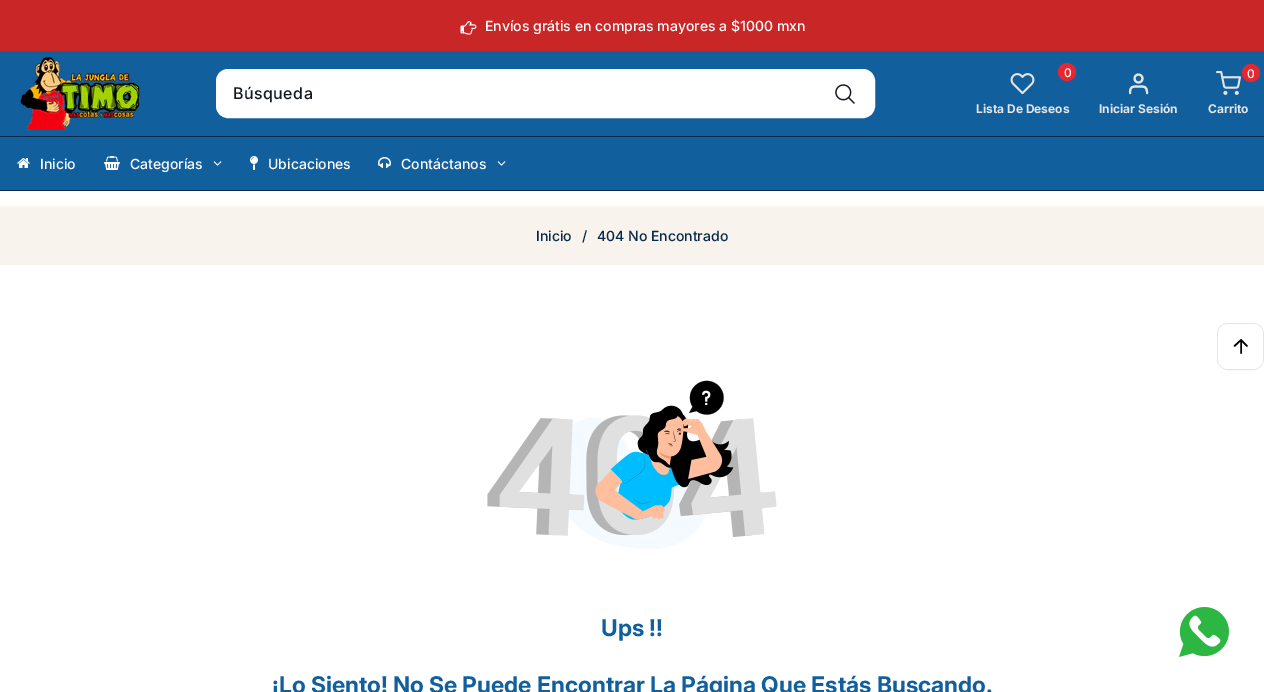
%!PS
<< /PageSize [1264 692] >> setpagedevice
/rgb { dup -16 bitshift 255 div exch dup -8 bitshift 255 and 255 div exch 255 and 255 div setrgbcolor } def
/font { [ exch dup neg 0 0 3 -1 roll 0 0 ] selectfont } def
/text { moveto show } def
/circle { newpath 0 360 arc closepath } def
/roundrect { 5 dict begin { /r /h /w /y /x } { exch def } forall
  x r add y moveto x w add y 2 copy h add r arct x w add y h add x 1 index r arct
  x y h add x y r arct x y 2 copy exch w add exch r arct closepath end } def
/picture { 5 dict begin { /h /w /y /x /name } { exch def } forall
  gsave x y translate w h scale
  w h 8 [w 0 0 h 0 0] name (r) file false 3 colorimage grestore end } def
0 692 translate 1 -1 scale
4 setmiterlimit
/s1 { /Inter-Medium 14 font 16#FFFFFF rgb } def
/s2 { /Inter-Medium 12 font 16#FFFFFF rgb } def
/s3 { /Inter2-Bold 12 font 16#E5E5E5 rgb } def
/s4 { /Inter-Medium 14 font 16#08284A rgb } def
/s5 { /Inter-Bold 23 font 16#125F9D rgb } def
16#FFFFFF rgb
0 0 1264 692 rectfill
16#C92727 rgb
0 0 1264 51 rectfill
(pic1.raw) 460 21 17 14 picture
s1
(Envíos grátis en compras mayores a $1000 mxn) 485 31 text
16#125F9D rgb
0 51 1264 139 rectfill
(pic2.raw) 20 57 120 73 picture
16#FFFFFF rgb
218 71 655 45 10 roundrect fill
818 71 moveto 863 71 lineto 868.5 71 873 75.5 873 81 curveto 873 106 lineto 873 111.5 868.5 116 863 116 curveto 818 116 lineto closepath fill
(pic3.raw) 835 84 20 20 picture
2 setlinewidth
217 70 657 47 11 roundrect stroke
/Inter2-Medium 16 font
16#131921 rgb
233 99 moveto 0.5 0 (Búsqueda) ashow
(pic4.raw) 1010 73 25 22 picture
16#E72730 rgb
1067 72 9 circle fill
s2
(0) 1064 77 text
s3
(Lista De Deseos) 976 113 text
2.1 setlinewidth
1 setlinecap
1 setlinejoin
1147 93 moveto 1147 86 1144.5 86.5 1138.5 86.5 curveto 1132.5 86.5 1130 86 1130 93 curveto stroke
0 setlinecap
0 setlinejoin
1138.5 78.5 4 circle stroke
(Iniciar Sesión) 1099 113 text
(pic5.raw) 1216 71 25 24 picture
16#E72730 rgb
1251 73 9 circle fill
s2
(0) 1247 78 text
s3
(Carrito) 1208 113 text
16#08284A rgb
0 136 1264 1 rectfill
0 190 1264 1 rectfill
(pic6.raw) 17 158 13 10 picture
s1
(Inicio) 40 169 text
(pic7.raw) 104 156 16 14 picture
(Categorías) 130 169 text
(pic8.raw) 213 161 9 5 picture
(pic9.raw) 250 156 8 14 picture
(Ubicaciones) 268 169 text
(pic10.raw) 378 157 13 11 picture
(Contáctanos) 401 169 text
(pic8.raw) 497 161 9 5 picture
16#F8F3EC rgb
0 206 1264 59 rectfill
s4
(Inicio) 536 241 text
(/) 582 241 text
(404 No Encontrado) 597 241 text
16#E5E5E5 rgb
1 setlinewidth
1217.5 323.5 46 46 10.5 roundrect stroke
16#FFFFFF rgb
1218 324 45 45 10 roundrect fill
16#000000 rgb
1.6 setlinewidth
1 setlinecap
1 setlinejoin
1241 353 moveto 1241 340 lineto 1241 340 moveto 1247 346 lineto 1241 340 moveto 1234.5 346 lineto stroke
(pic11.raw) 487 380 290 169 picture
s5
(Ups !!) 601 636 text
(¡Lo Siento! No Se Puede Encontrar La Página Que Estás Buscando.) 272 693 text
(pic12.raw) 1179 607 50 50 picture
showpage
